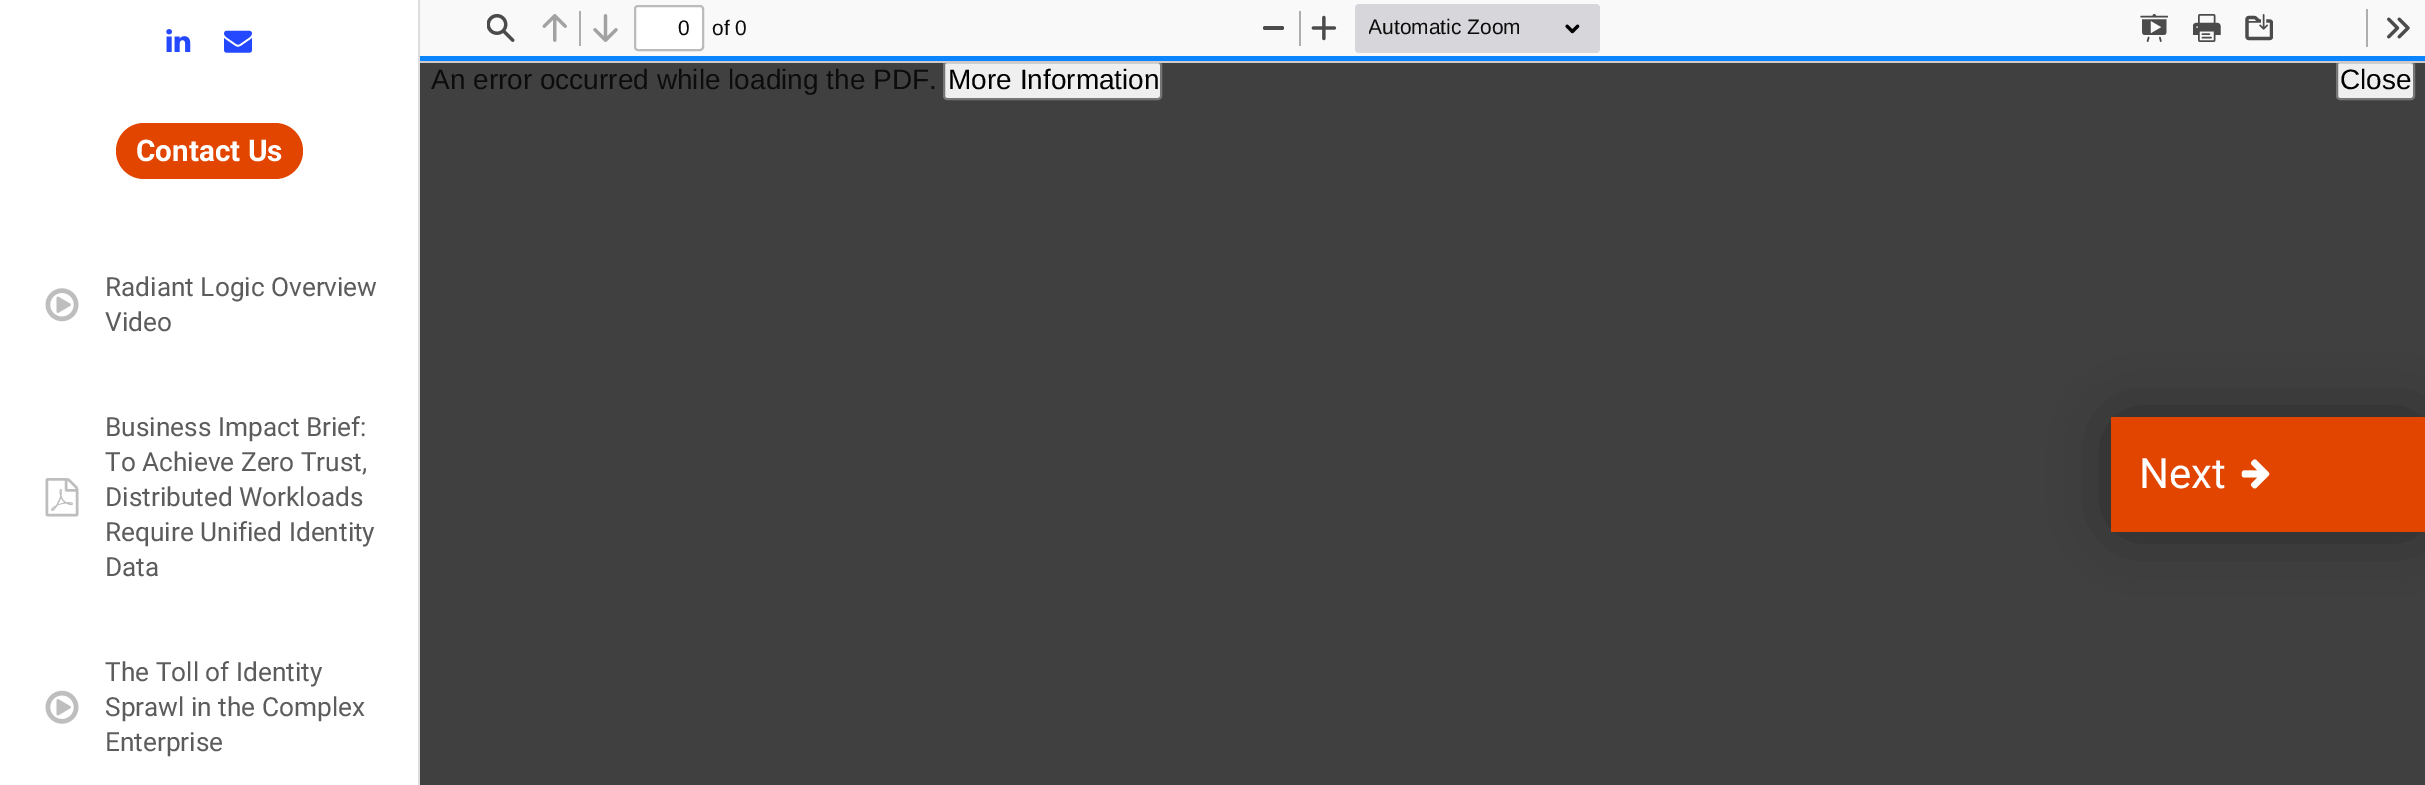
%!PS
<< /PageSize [2425 785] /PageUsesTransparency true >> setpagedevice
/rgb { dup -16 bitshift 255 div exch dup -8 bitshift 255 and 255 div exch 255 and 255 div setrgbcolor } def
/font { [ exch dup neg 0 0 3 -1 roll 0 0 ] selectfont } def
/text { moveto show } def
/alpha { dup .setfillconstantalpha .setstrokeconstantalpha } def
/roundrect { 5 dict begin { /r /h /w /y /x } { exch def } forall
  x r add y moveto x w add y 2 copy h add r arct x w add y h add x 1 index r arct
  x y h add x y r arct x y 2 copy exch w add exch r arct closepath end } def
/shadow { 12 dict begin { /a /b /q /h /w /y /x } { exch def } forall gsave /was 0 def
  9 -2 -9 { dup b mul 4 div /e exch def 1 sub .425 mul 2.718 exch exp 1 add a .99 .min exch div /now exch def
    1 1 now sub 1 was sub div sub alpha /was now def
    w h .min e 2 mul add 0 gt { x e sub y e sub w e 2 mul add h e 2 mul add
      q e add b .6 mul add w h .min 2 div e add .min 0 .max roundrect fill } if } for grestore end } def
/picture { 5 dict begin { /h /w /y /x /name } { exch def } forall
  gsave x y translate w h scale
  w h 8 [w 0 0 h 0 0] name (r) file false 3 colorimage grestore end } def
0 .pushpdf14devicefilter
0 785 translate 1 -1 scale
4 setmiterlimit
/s1 { /LiberationSans-Regular 21 font 16#060606 rgb } def
/s2 { /LiberationSans-Regular 21 font 16#0C0C0D rgb } def
/s3 { /LiberationSans-Regular 28 font 16#0C0C0D rgb } def
/s4 { /LiberationSans-Regular 28 font 16#000000 rgb } def
/s5 { /Roboto-Bold 29.75 font 16#FFFFFF rgb } def
/s6 { /Roboto-Regular 26.25 font 16#5C5C5C rgb } def
/s7 { /Roboto-Regular 42 font 16#FFFFFF rgb } def
16#404040 rgb
0 0 2425 785 rectfill
16#F9F9FA rgb
420 0 2005 56 rectfill
(pic1.raw) 487 14 28 28 picture
(pic2.raw) 542 14 25 28 picture
16#AEAEAF rgb
579 11 2 35 rectfill
(pic3.raw) 593 14 25 28 picture
16#FFFFFF rgb
635 6 68 44 3 roundrect gsave fill grestore
16#BBBBBC rgb
2 setlinewidth
stroke
s1
(0) 678 35 text
s2
(of 0) 712 35 text
16#4B4B4B rgb
1263 26 21 4 2 roundrect fill
16#AEAEAF rgb
1299 11 2 35 rectfill
(pic4.raw) 1311 15 26 26 picture
16#D7D7DB rgb
1355 4 245 49 4 roundrect fill
gsave
1369 14 241 28 rectclip
s2
(Automatic Zoom) 1368 34 text
grestore
(pic5.raw) 1565 24 15 10 picture
(pic6.raw) 2140 14 28 28 picture
(pic7.raw) 2193 14 28 28 picture
(pic8.raw) 2245 14 28 27 picture
16#AEAEAF rgb
2366 9 2 38 rectfill
(pic9.raw) 2387 17 23 22 picture
16#EFEFEF rgb
944 62 217 37 3 roundrect gsave fill grestore
16#767676 rgb
stroke
16#EFEFEF rgb
2337 62 77 37 3 roundrect gsave fill grestore
16#767676 rgb
stroke
16#CCCCCC rgb
420 61 2005 2 rectfill
16#0A84FF rgb
420 56 2005 5 rectfill
s3
(An error occurred while loading the PDF.) 431 89 text
s4
(More Information) 948 89 text
(Close) 2340 89 text
16#FFFFFF rgb
0 0 418 785 rectfill
16#DDDDDD rgb
418 0 2 785 rectfill
(pic10.raw) 166 29 25 23 picture
(pic11.raw) 224 30 28 23 picture
16#E24500 rgb
116 123 187 56 28 roundrect fill
s5
(Contact Us) 136 161 text
(pic12.raw) 45 288 34 34 picture
s6
(Radiant Logic Overview) 105 296 text
(Video) 105 331 text
(pic13.raw) 45 478 34 39 picture
(Business Impact Brief:) 105 436 text
(To Achieve Zero Trust,) 105 471 text
(Distributed Workloads) 105 506 text
(Require Unified Identity) 105 541 text
(Data) 105 576 text
(pic14.raw) 45 690 34 34 picture
(The Toll of Identity) 105 681 text
(Sprawl in the Complex) 105 716 text
(Enterprise) 105 751 text
16#000000 rgb
2125 431 287 87 0 35 0.5 shadow
16#E24500 rgb
2111 417 314 115 rectfill
s7
(Next) 2139 488 text
(pic15.raw) 2241 459 29 30 picture
.poppdf14devicefilter showpage
